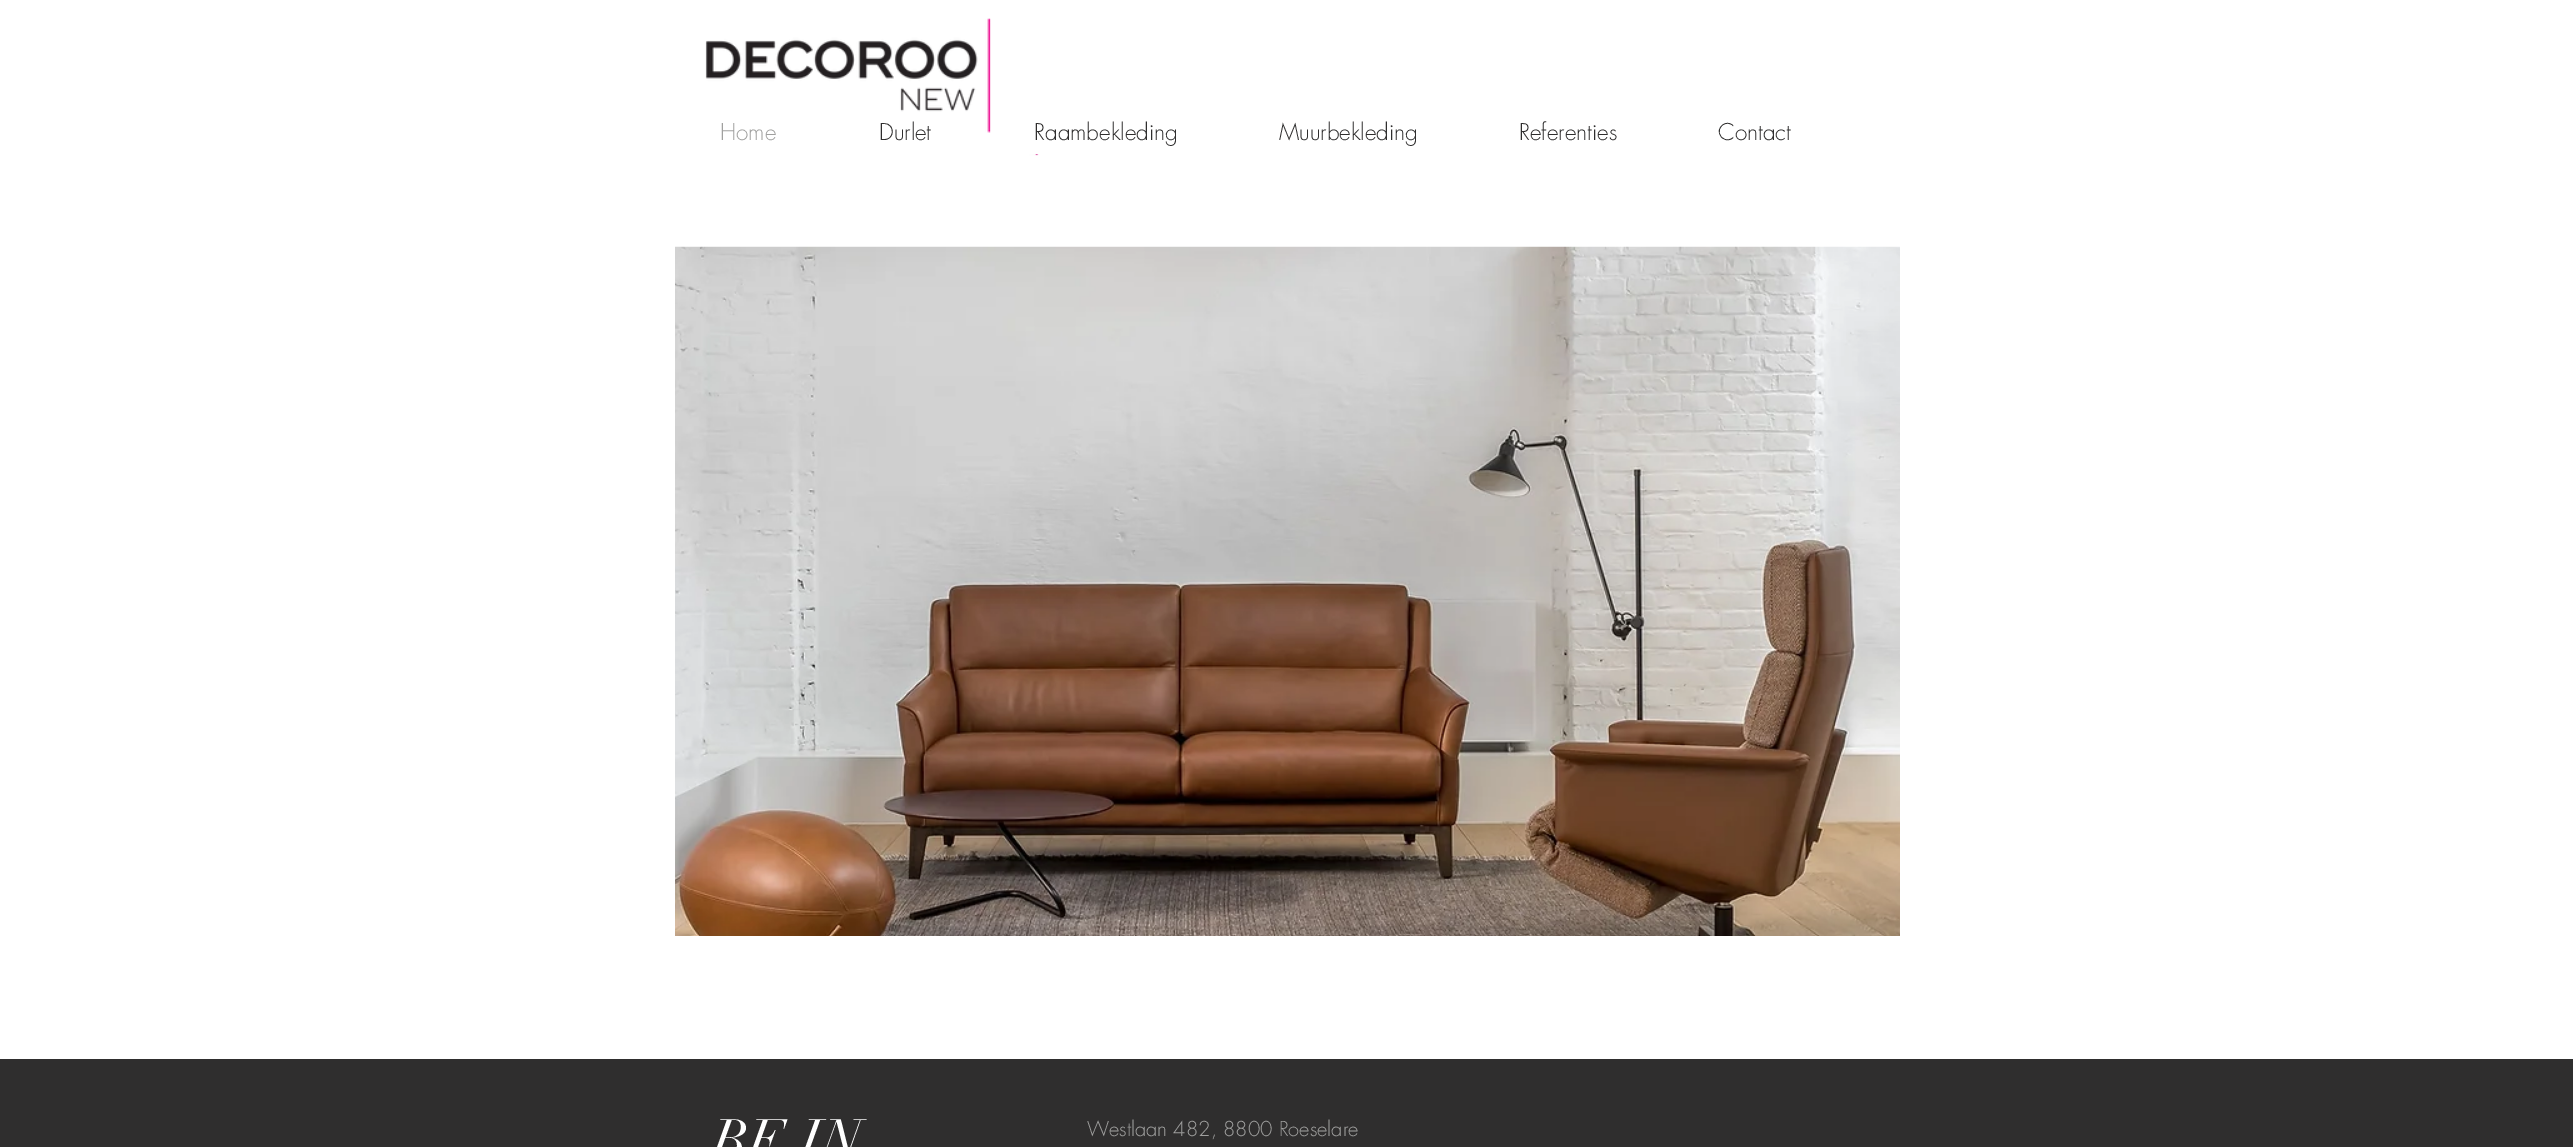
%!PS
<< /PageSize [2573 1147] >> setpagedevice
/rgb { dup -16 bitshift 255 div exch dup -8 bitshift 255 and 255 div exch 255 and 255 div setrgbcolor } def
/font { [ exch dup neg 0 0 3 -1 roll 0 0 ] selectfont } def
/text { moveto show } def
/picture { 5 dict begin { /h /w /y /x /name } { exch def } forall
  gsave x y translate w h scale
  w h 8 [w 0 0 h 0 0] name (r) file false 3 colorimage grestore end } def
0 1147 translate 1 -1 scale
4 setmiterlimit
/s1 { /futura-Light 22.5 font 16#A0A09F rgb } def
/s2 { /futura-Light 22.5 font 16#2F2E2E rgb } def
/s3 { /didot-Regular 56 font 16#FFFFFF rgb } def
/s4 { /futura-Light 20 font 16#A0A09F rgb } def
16#FFFFFF rgb
0 0 2573 1147 rectfill
(pic1.raw) 705 18 286 115 picture
s1
(Home) 720 140 text
s2
(Durlet) 879 140 text
(Raambekleding) 1034 140 text
(Muurbekleding) 1279 140 text
(Referenties) 1519 140 text
(Contact) 1718 140 text
(pic2.raw) 705 154 334 2 picture
(pic3.raw) 675 246 1225 690 picture
0 1059 2573 88 rectfill
s3
(BE IN) 712 1159 text
s4
(Westlaan 482, 8800 Roeselare) 1087 1136 text
showpage
